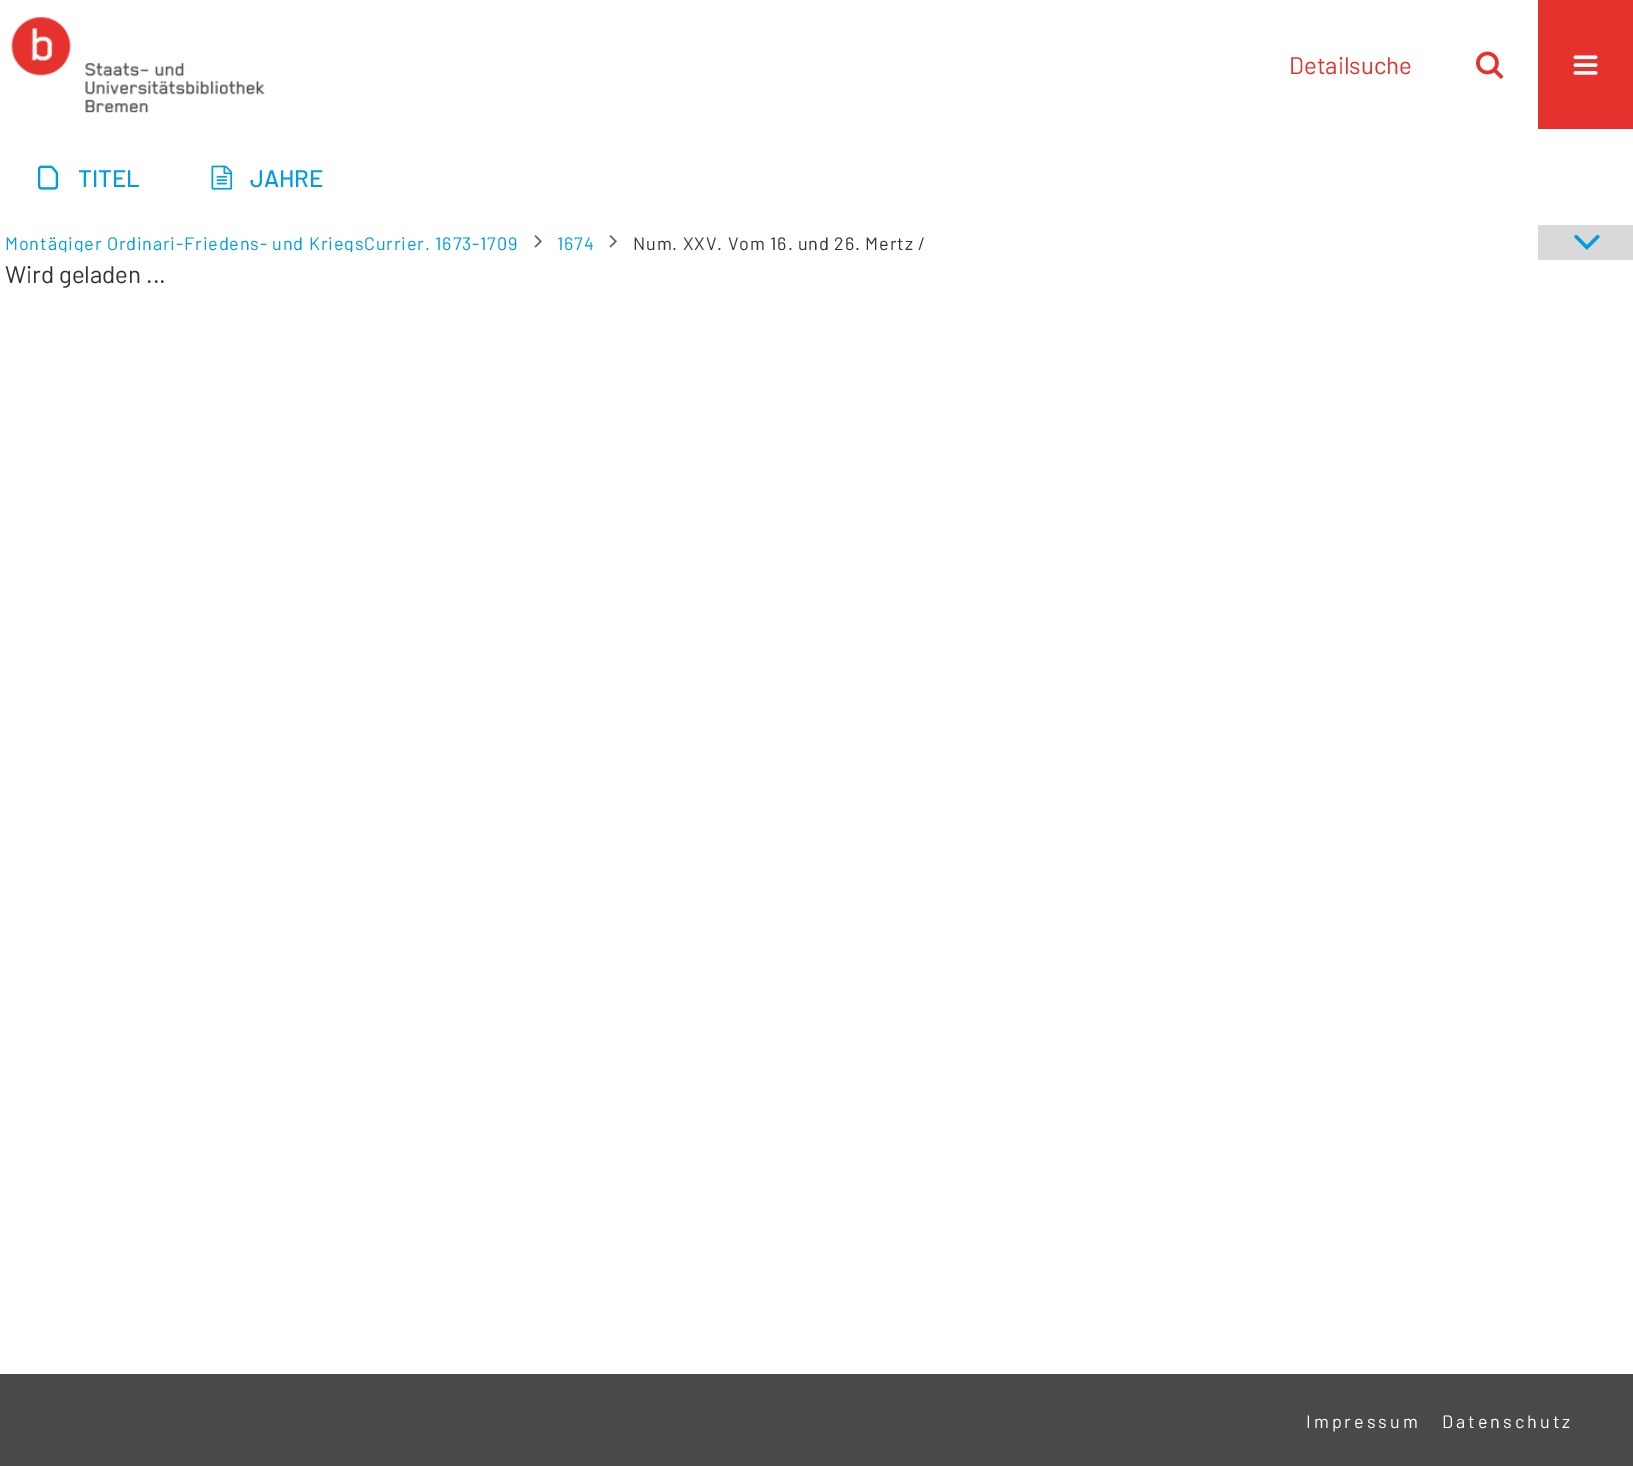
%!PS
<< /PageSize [1633 1466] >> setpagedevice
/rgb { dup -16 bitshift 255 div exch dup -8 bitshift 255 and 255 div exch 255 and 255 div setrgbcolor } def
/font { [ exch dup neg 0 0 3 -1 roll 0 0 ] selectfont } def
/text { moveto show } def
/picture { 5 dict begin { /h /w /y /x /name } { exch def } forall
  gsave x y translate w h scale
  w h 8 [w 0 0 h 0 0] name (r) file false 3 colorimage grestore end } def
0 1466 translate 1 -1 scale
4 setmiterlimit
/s1 { /Barlow-Regular 24 font 16#E5322D rgb } def
/s2 { /Barlow-Medium 24 font 16#009DE0 rgb } def
/s3 { /Barlow-Regular 24 font 16#333333 rgb } def
16#FFFFFF rgb
0 0 1633 1466 rectfill
(pic1.raw) 11 17 254 96 picture
s1
(Detailsuche) 1289 74 text
(pic2.raw) 1476 51 28 28 picture
1538 0 95 129 rectfill
(pic3.raw) 1573 55 25 20 picture
(pic4.raw) 37 165 22 25 picture
s2
(TITEL) 78 187 text
(pic5.raw) 211 165 22 25 picture
(JAHRE) 250 187 text
gsave
6 231 513 21 rectclip
/Barlow-Regular 18 font
5 250 moveto 0.9 0 (Montägiger Ordinari-Friedens- und KriegsCurrier. 1673-1709) ashow
grestore
(pic6.raw) 534 235 8 13 picture
/Barlow-Regular 18 font
557 250 moveto 0.9 0 (1674) ashow
(pic6.raw) 609 235 8 13 picture
16#333333 rgb
633 250 moveto 0.9 0 (Num. XXV. Vom 16. und 26. Mertz /) ashow
16#D9D9D9 rgb
1538 225 95 35 rectfill
(pic7.raw) 1574 234 26 16 picture
s3
(Wird geladen ...) 5 283 text
16#494949 rgb
0 1374 1633 92 rectfill
/Barlow-Regular 18 font
16#FFFFFF rgb
1306 1428 moveto 3 0 (Impressum) ashow
1442 1428 moveto 3 0 (Datenschutz) ashow
showpage
